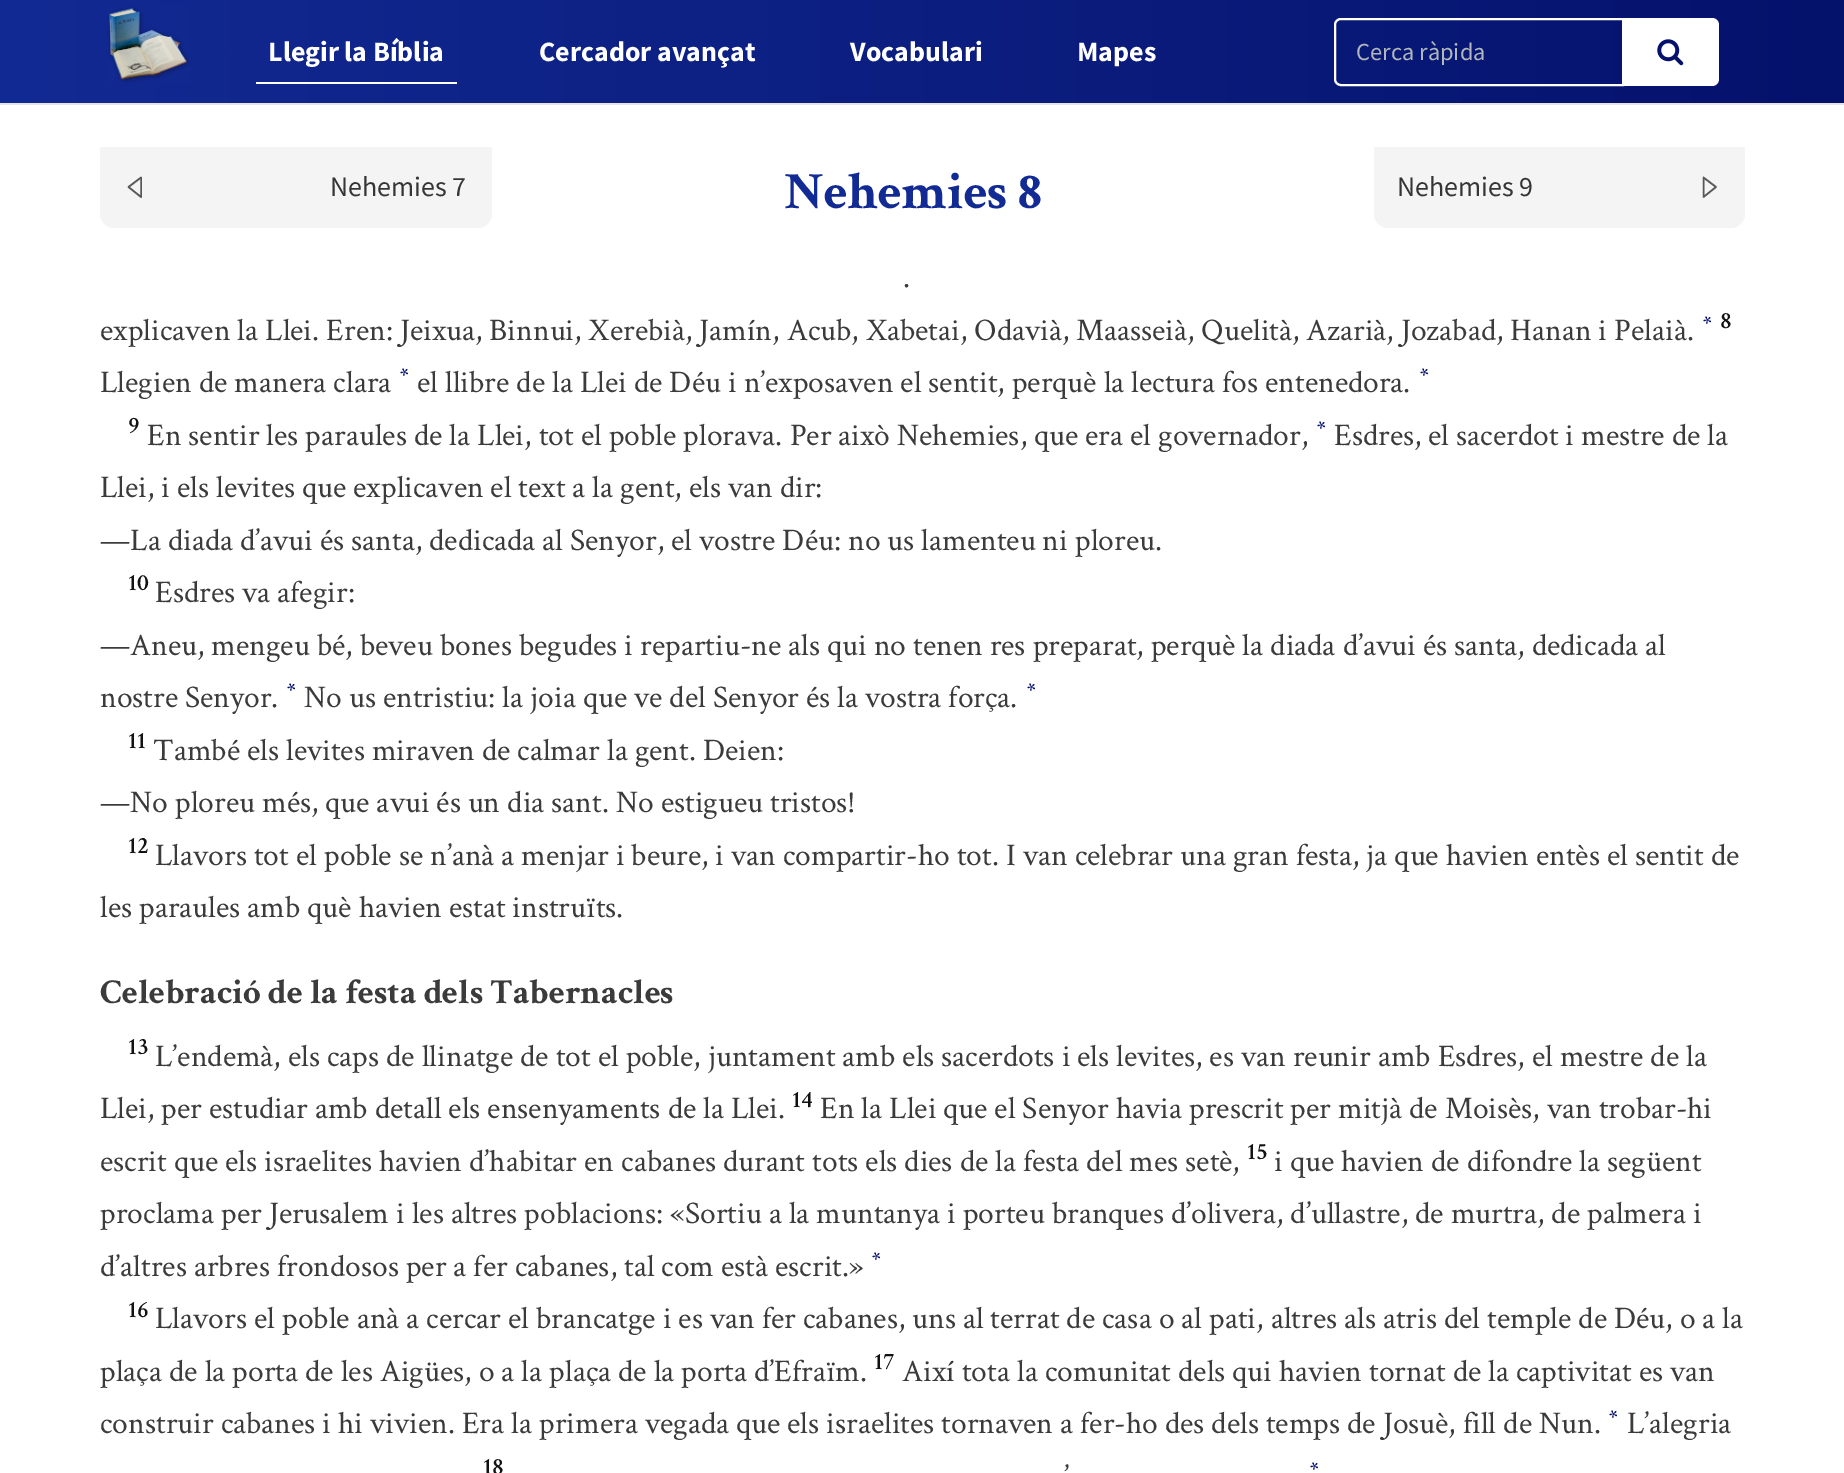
%!PS
<< /PageSize [1844 1473] /PageUsesTransparency true >> setpagedevice
/rgb { dup -16 bitshift 255 div exch dup -8 bitshift 255 and 255 div exch 255 and 255 div setrgbcolor } def
/font { [ exch dup neg 0 0 3 -1 roll 0 0 ] selectfont } def
/text { moveto show } def
/alpha { dup .setfillconstantalpha .setstrokeconstantalpha } def
/picture { 5 dict begin { /h /w /y /x /name } { exch def } forall
  gsave x y translate w h scale
  w h 8 [w 0 0 h 0 0] name (r) file false 3 colorimage grestore end } def
0 .pushpdf14devicefilter
0 1473 translate 1 -1 scale
4 setmiterlimit
/s1 { /SourceSansPro-Bold 28 font 16#FFFFFF rgb } def
/s2 { /SourceSansPro-Regular 24.5 font 16#B1B7BA rgb } def
/s3 { /CrimsonText-Regular 31.5 font 16#3B3B3B rgb } def
/s4 { /SourceSansPro-Regular 28 font 16#353535 rgb } def
/s5 { /CrimsonText-Bold 52.5 font 16#122A93 rgb } def
/s6 { /CrimsonText-Bold 21 font 16#05126C rgb } def
/s7 { /CrimsonText-SemiBold 24 font 16#121212 rgb } def
/s8 { /CrimsonText-Bold 35 font 16#3B3B3B rgb } def
16#FFFFFF rgb
0 0 1844 1473 rectfill
gsave 0 0 moveto 1844 0 lineto 1844 103 lineto 0 103 lineto closepath clip newpath
<< /ShadingType 2 /ColorSpace /DeviceRGB /Coords [0 52 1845 52] /Extend [true true] /Function << /FunctionType 2 /Domain [0 1] /C0 [0.071 0.165 0.576] /C1 [0.02 0.071 0.424] /N 1 >> >> shfill grestore
16#E6E5E5 rgb
0 103 1844 2 rectfill
(pic1.raw) 107 6 83 77 picture
16#FFFFFF rgb
256 82 201 2 rectfill
s1
(Llegir la Bíblia) 268 61 text
(Cercador avançat) 539 61 text
(Vocabulari) 850 61 text
(Mapes) 1077 61 text
0.07 alpha
16#000000 rgb
1340 21 moveto 1622 21 lineto 1622 19 lineto 1339 19 lineto 1335 20 1335 23 1335 26 curveto 1335 23 1338 21 1340 21 curveto closepath fill
1 alpha
16#FFFFFF rgb
2 setlinewidth
1341 19 moveto 1623 19 lineto 1623 85 lineto 1341 85 lineto 1337.5 85 1335 82.5 1335 79 curveto 1335 25 lineto 1335 21.5 1337.5 19 1341 19 curveto closepath stroke
s2
(Cerca ràpida) 1356 60 text
16#FFFFFF rgb
1622 18 moveto 1712 18 lineto 1716 18 1719 21 1719 25 curveto 1719 79 lineto 1719 83 1716 86 1712 86 curveto 1622 86 lineto closepath fill
(pic2.raw) 1657 39 27 27 picture
s3
(.) 903 287 text
16#FFFFFF rgb
906 283 2 1 rectfill
16#F4F4F4 rgb
100 147 moveto 492 147 lineto 492 214 lineto 492 221.5 485.5 228 478 228 curveto 114 228 lineto 106.5 228 100 221.5 100 214 curveto closepath fill
16#595858 rgb
1.6 setlinewidth
1 setlinecap
1 setlinejoin
141 177.5 moveto 141 197 lineto 128.5 187 lineto closepath stroke
s4
(Nehemies 7) 330 196 text
s5
(Nehemies 8) 784 208 text
16#F4F4F4 rgb
1374 147 moveto 1745 147 lineto 1745 214 lineto 1745 221.5 1738.5 228 1731 228 curveto 1388 228 lineto 1380.5 228 1374 221.5 1374 214 curveto closepath fill
s4
(Nehemies 9) 1397 196 text
16#595858 rgb
1703.5 197 moveto 1703.5 177.5 lineto 1716 187 lineto closepath stroke
s3
(explicaven la Llei. Eren: Jeixua, Binnui, Xerebià, Jamín, Acub, Xabetai, Odavià, Maasseià, Quelità, Azarià, Jozabad, Hanan i Pelaià.) 100 340 text
s6
(*) 1703 330 text
s7
(8) 1720 328 text
s3
(Llegien de manera clara) 100 392 text
s6
(*) 400 382 text
s3
(el llibre de la Llei de Déu i n’exposaven el sentit, perquè la lectura fos entenedora.) 417 392 text
s6
(*) 1420 382 text
s7
(9) 128 433 text
s3
(En sentir les paraules de la Llei, tot el poble plorava. Per això Nehemies, que era el governador,) 147 445 text
s6
(*) 1317 435 text
s3
(Esdres, el sacerdot i mestre de la) 1334 445 text
(Llei, i els levites que explicaven el text a la gent, els van dir:) 100 497 text
(—La diada d’avui és santa, dedicada al Senyor, el vostre Déu: no us lamenteu ni ploreu.) 100 550 text
s7
(10) 128 590 text
s3
(Esdres va afegir:) 155 602 text
(—Aneu, mengeu bé, beveu bones begudes i repartiu-ne als qui no tenen res preparat, perquè la diada d’avui és santa, dedicada al) 100 655 text
(nostre Senyor.) 100 707 text
s6
(*) 287 697 text
s3
(No us entristiu: la joia que ve del Senyor és la vostra força.) 304 707 text
s6
(*) 1027 697 text
s7
(11) 128 748 text
s3
(També els levites miraven de calmar la gent. Deien:) 153 760 text
(—No ploreu més, que avui és un dia sant. No estigueu tristos!) 100 812 text
s7
(12) 128 853 text
s3
(Llavors tot el poble se n’anà a menjar i beure, i van compartir-ho tot. I van celebrar una gran festa, ja que havien entès el sentit de) 155 865 text
(les paraules amb què havien estat instruïts.) 100 917 text
s8
(Celebració de la festa dels Tabernacles) 100 1003 text
s7
(13) 128 1054 text
s3
(L’endemà, els caps de llinatge de tot el poble, juntament amb els sacerdots i els levites, es van reunir amb Esdres, el mestre de la) 155 1066 text
(Llei, per estudiar amb detall els ensenyaments de la Llei.) 100 1118 text
s7
(14) 792 1107 text
s3
(En la Llei que el Senyor havia prescrit per mitjà de Moisès, van trobar-hi) 820 1118 text
(escrit que els israelites havien d’habitar en cabanes durant tots els dies de la festa del mes setè,) 100 1171 text
s7
(15) 1247 1159 text
s3
(i que havien de difondre la següent) 1274 1171 text
(proclama per Jerusalem i les altres poblacions: «Sortiu a la muntanya i porteu branques d’olivera, d’ullastre, de murtra, de palmera i) 100 1223 text
(d’altres arbres frondosos per a fer cabanes, tal com està escrit.») 100 1276 text
s6
(*) 872 1266 text
s7
(16) 128 1317 text
s3
(Llavors el poble anà a cercar el brancatge i es van fer cabanes, uns al terrat de casa o al pati, altres als atris del temple de Déu, o a la) 155 1328 text
(plaça de la porta de les Aigües, o a la plaça de la porta d’Efraïm.) 100 1381 text
s7
(17) 874 1369 text
s3
(Així tota la comunitat dels qui havien tornat de la captivitat es van) 902 1381 text
(construir cabanes i hi vivien. Era la primera vegada que els israelites tornaven a fer-ho des dels temps de Josuè, fill de Nun.) 100 1433 text
s6
(*) 1609 1424 text
s3
(L’alegria) 1627 1433 text
s7
(18) 483 1474 text
s3
(’) 1064 1486 text
s6
(*) 1310 1476 text
.poppdf14devicefilter showpage
